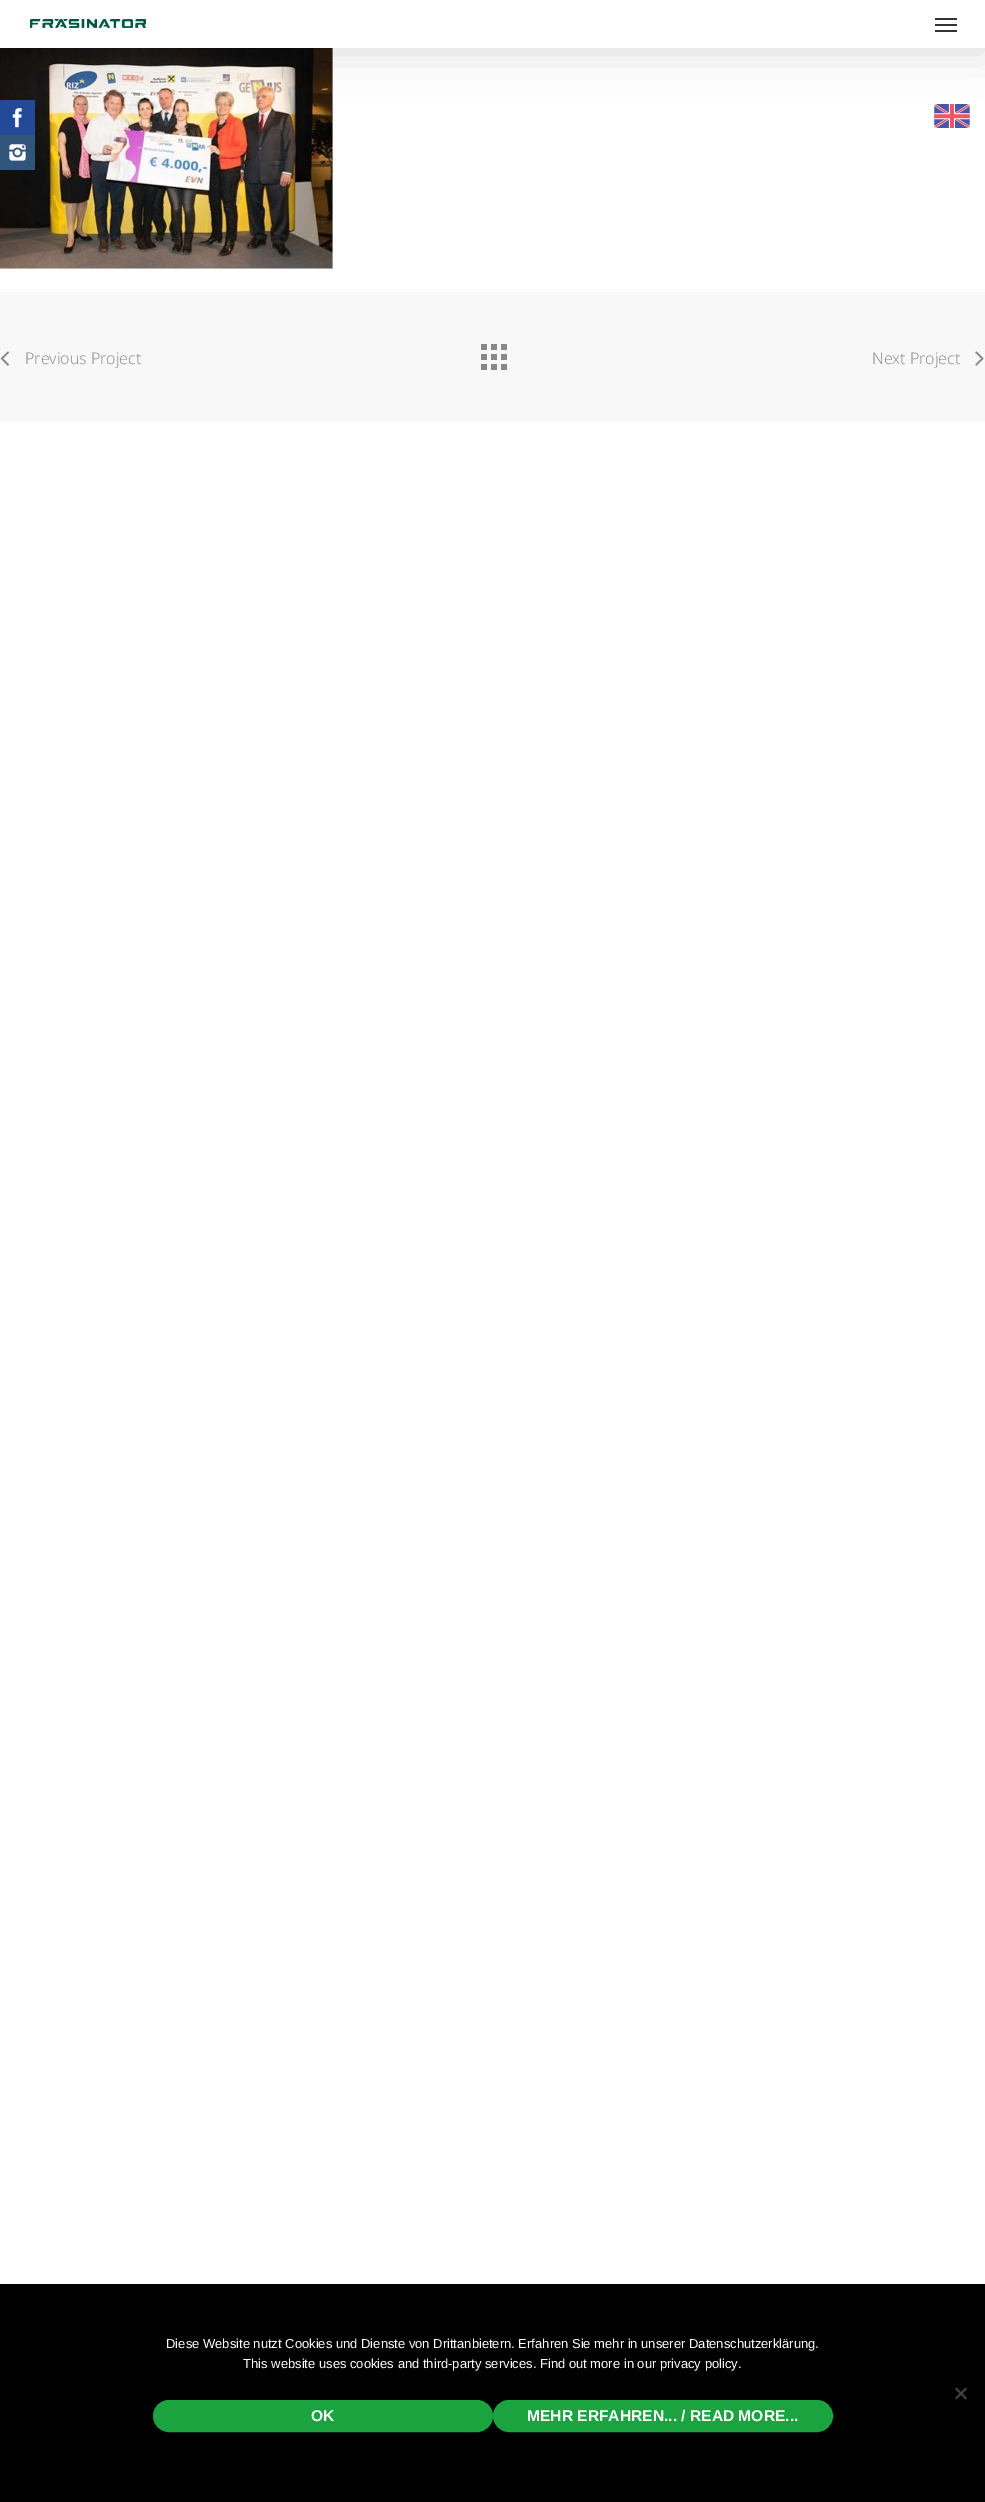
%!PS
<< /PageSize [985 2502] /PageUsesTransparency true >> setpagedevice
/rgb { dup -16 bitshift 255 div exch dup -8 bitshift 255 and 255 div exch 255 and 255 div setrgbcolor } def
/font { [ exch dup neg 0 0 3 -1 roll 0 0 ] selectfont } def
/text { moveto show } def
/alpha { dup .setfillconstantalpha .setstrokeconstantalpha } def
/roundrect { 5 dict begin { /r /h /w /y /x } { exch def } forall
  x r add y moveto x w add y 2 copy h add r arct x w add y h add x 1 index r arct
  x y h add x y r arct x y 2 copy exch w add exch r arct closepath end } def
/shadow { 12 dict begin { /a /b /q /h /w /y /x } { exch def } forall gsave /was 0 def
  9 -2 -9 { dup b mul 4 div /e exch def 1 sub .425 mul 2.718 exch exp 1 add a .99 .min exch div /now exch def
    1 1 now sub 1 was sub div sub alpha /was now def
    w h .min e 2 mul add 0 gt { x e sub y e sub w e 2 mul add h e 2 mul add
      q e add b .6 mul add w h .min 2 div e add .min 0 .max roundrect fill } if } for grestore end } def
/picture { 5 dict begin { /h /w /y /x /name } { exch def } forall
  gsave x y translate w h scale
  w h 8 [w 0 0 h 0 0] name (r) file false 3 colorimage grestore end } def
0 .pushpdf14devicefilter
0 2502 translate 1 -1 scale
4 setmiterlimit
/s1 { /OpenSans-Light 16 font 16#888888 rgb } def
/s2 { /LiberationSans-Regular 13 font 16#FFFFFF rgb } def
/s3 { /LiberationSans-Bold 15.6 font 16#FFFFFF rgb } def
16#FFFFFF rgb
0 0 985 2502 rectfill
(pic5.raw) 0 48 333 221 picture
16#234999 rgb
0 100 35 35 rectfill
(pic2.raw) 12 108 10 20 picture
16#000000 rgb
0 3 985 48 0 22.5 0.15 shadow
16#FFFFFF rgb
0 0 985 48 rectfill
(pic1.raw) 30 19 117 9 picture
16#333333 rgb
935 18 22 2 rectfill
935 30 22 2 rectfill
935 24 22 2 rectfill
16#31547A rgb
0 135 35 35 rectfill
(pic3.raw) 9 144 17 17 picture
(pic4.raw) 934 104 36 24 picture
16#F8F8F8 rgb
0 292 985 130 rectfill
16#888888 rgb
501 364 6 6 rectfill
491 364 6 6 rectfill
481 344 6 6 rectfill
491 344 6 6 rectfill
501 344 6 6 rectfill
501 354 6 6 rectfill
481 364 6 6 rectfill
481 354 6 6 rectfill
491 354 6 6 rectfill
(pic6.raw) 0 351 9 15 picture
s1
(Previous Project) 25 364 text
(Next Project) 872 364 text
(pic7.raw) 975 351 9 15 picture
16#000000 rgb
0 2284 985 218 rectfill
s2
(Diese Website nutzt Cookies und Dienste von Drittanbietern. Erfahren Sie mehr in unserer Datenschutzerklärung.) 166 2348 text
(This website uses cookies and third-party services. Find out more in our privacy policy.) 243 2368 text
16#404040 rgb
965.5 2387.5 moveto 967 2389 lineto 956.5 2399.5 lineto 955 2398 lineto closepath fill
955 2389 moveto 956.5 2387.5 lineto 967 2398 lineto 965.5 2399.5 lineto closepath fill
16#1BA33F rgb
156 2403 334 26 13 roundrect gsave fill grestore
6 setlinewidth
stroke
s3
(OK) 311 2421 text
16#1BA33F rgb
496 2403 334 26 13 roundrect gsave fill grestore
stroke
s3
(MEHR ERFAHREN... / READ MORE...) 527 2421 text
.poppdf14devicefilter showpage
